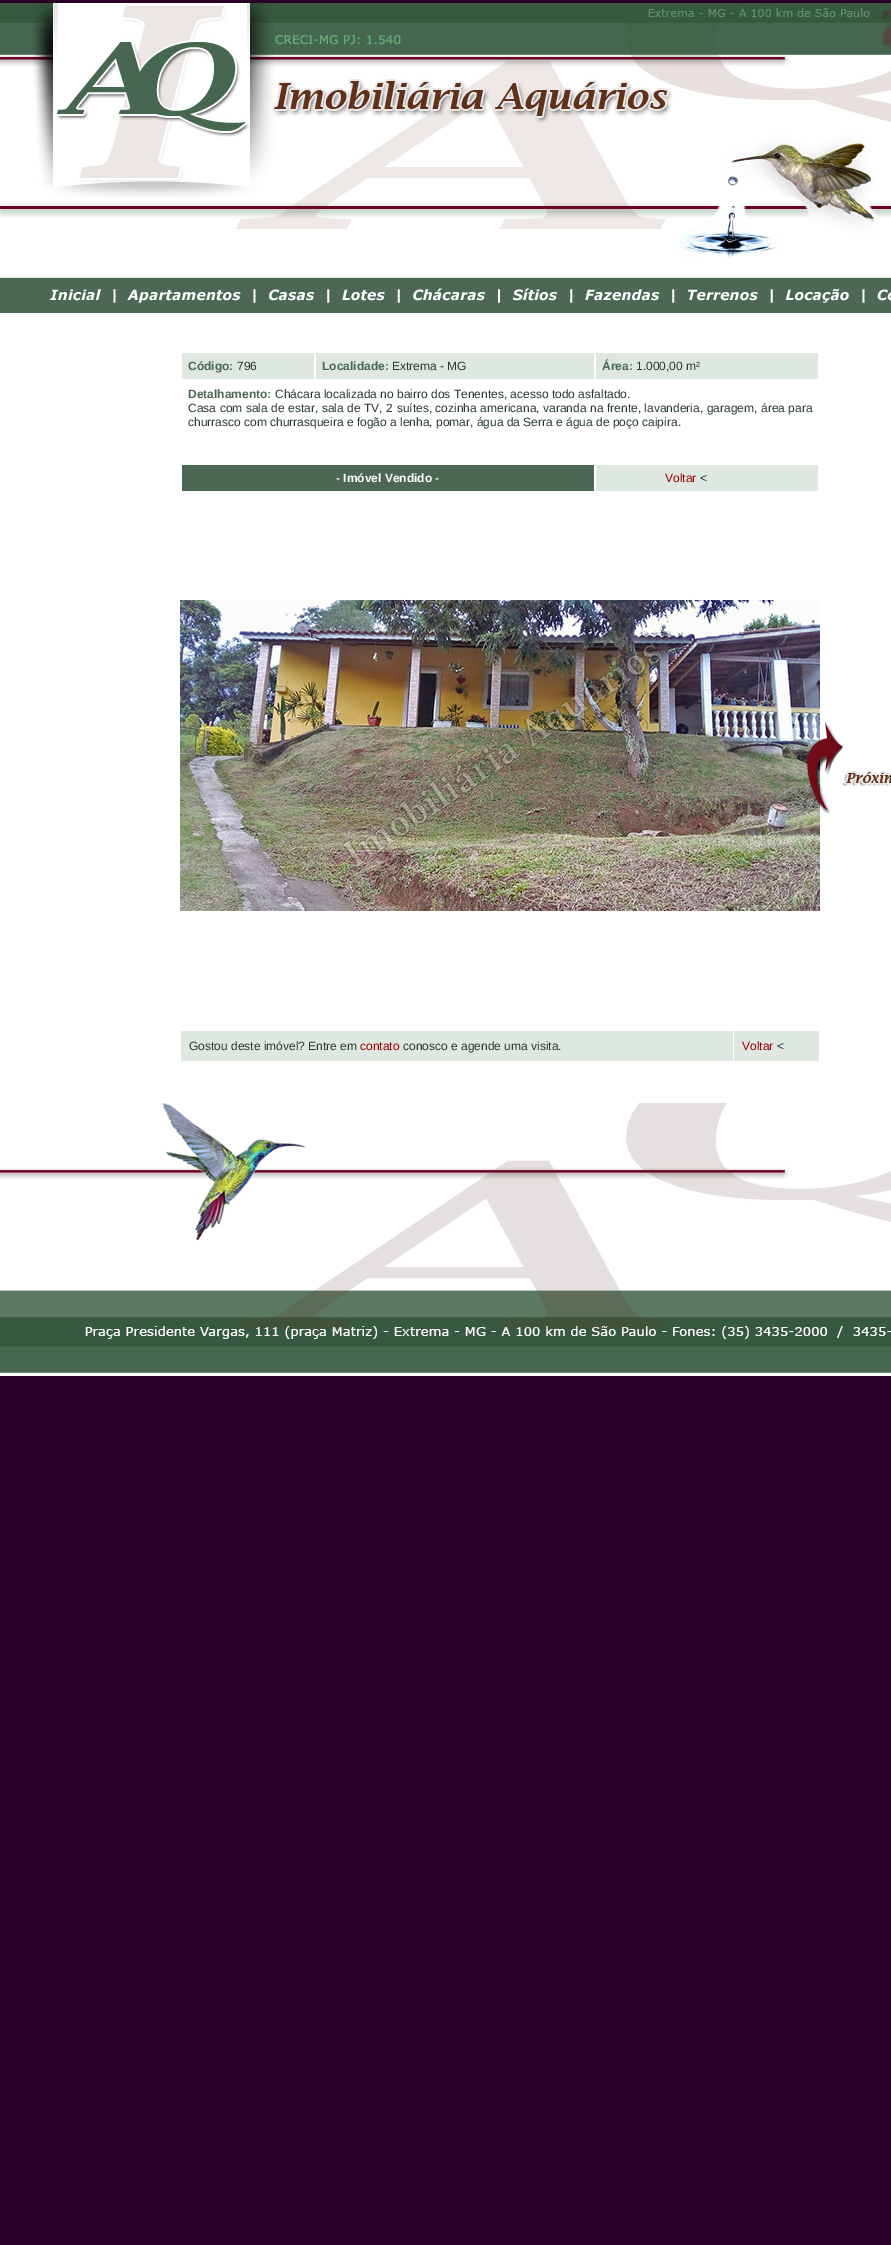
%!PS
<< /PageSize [891 2245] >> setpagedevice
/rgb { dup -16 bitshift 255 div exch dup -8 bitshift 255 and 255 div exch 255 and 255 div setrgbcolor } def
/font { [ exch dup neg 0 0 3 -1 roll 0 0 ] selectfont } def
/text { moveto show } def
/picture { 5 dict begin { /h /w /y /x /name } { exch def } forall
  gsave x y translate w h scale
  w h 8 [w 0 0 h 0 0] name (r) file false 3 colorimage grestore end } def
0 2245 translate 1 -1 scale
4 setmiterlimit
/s1 { /LiberationSans-Bold 12 font 16#4B6854 rgb } def
/s2 { /LiberationSans-Regular 12 font 16#293A30 rgb } def
/s3 { /LiberationSans-Bold 12 font 16#FFFFFF rgb } def
/s4 { /LiberationSans-Regular 12 font 16#990000 rgb } def
/s5 { /LiberationSans-Regular 12 font 16#333333 rgb } def
16#280028 rgb
0 0 891 2245 rectfill
(pic1.raw) 0 3 891 310 picture
16#FFFFFF rgb
0 313 891 1063 rectfill
16#DEE7E0 rgb
182 353 132 26 rectfill
s1
(Código:) 188 370 text
s2
(796) 237 370 text
16#DEE7E0 rgb
316 353 278 26 rectfill
s1
(Localidade:) 322 370 text
s2
(Extrema - MG) 392 370 text
16#DEE7E0 rgb
596 353 222 26 rectfill
s1
(Área:) 602 370 text
s2
(1.000,00 m²) 636 370 text
s1
(Detalhamento:) 188 398 text
s2
(Chácara localizada no bairro dos Tenentes, acesso todo asfaltado.) 275 398 text
188 412 moveto 0.2 0 32 (Casa com sala de estar, sala de TV, 2 suítes, cozinha americana, varanda na frente, lavanderia, garagem, área para) widthshow
(churrasco com churrasqueira e fogão a lenha, pomar, água da Serra e água de poço caipira.) 188 426 text
16#4C6754 rgb
182 465 412 26 rectfill
s3
(- Imóvel Vendido -) 336 482 text
16#DEE7E0 rgb
596 465 222 26 rectfill
s4
(Voltar) 665 482 text
s5
(<) 700 482 text
(pic2.raw) 180 597 640 314 picture
(pic3.raw) 807 722 84 92 picture
16#DEE7E0 rgb
181 1031 552 30 rectfill
s2
(Gostou deste imóvel? Entre em) 189 1050 text
s4
(contato) 360 1050 text
s2
(conosco e agende uma visita.) 403 1050 text
16#DEE7E0 rgb
734 1031 85 30 rectfill
s4
(Voltar) 742 1050 text
s5
(<) 777 1050 text
(pic4.raw) 0 1103 891 270 picture
showpage
